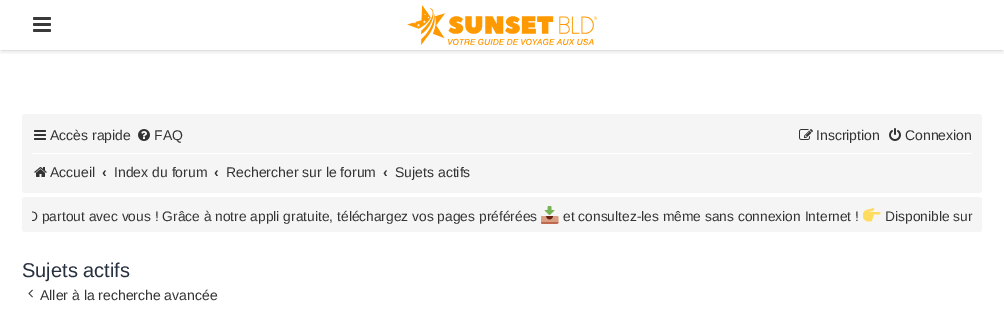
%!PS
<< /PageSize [1004 327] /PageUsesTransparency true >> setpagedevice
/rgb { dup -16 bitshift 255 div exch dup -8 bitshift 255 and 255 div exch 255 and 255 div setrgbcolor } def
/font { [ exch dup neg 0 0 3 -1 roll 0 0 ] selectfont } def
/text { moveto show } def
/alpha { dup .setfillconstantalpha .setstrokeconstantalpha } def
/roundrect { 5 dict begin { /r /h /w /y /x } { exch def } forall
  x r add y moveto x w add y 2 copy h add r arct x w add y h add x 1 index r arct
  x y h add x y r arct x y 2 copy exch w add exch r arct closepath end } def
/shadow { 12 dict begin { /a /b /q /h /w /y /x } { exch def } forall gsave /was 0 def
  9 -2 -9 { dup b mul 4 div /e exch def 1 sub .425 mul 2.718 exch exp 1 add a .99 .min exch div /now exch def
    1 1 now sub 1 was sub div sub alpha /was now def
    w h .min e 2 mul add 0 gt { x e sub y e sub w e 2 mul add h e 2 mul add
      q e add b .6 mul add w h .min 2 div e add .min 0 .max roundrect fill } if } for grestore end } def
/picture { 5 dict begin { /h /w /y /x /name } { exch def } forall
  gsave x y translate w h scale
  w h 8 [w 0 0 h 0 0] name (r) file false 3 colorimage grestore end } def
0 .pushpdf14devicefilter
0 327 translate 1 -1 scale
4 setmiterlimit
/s1 { /LiberationSans-Regular 14 font 16#333333 rgb } def
/s2 { /LiberationSans-Bold 14 font 16#333333 rgb } def
/s3 { /LiberationSans-Regular 13.8 font 16#333333 rgb } def
/s4 { /LiberationSans-Regular 20 font 16#28313F rgb } def
16#FFFFFF rgb
0 0 1004 327 rectfill
gsave
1 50 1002 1 rectclip
16#000000 rgb
1 3 1002 48 0 0.5 0.05 shadow
grestore
gsave
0 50 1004 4 rectclip
16#000000 rgb
1 4 1002 48 0 2.5 0.1 shadow
grestore
(pic1.raw) 33 17 18 15 picture
(pic2.raw) 407 5 190 40 picture
16#F5F5F5 rgb
22 114 960 79 3 roundrect fill
(pic3.raw) 34 130 12 10 picture
s1
(Accès rapide) 50 140 text
(pic4.raw) 138 129 12 12 picture
(FAQ) 154 140 text
(pic5.raw) 799 129 14 11 picture
(Inscription) 816 140 text
(pic6.raw) 889 128 12 13 picture
(Connexion) 905 140 text
16#FFFFFF rgb
32 153 940 1 rectfill
(pic7.raw) 34 167 13 10 picture
s1
(Accueil) 50 177 text
s2
(‹) 102 177 text
s1
(Index du forum) 114 177 text
s2
(‹) 214 177 text
s1
(Rechercher sur le forum) 226 177 text
s2
(‹) 383 177 text
s1
(Sujets actifs) 395 177 text
16#F5F5F5 rgb
22 197 960 35 3 roundrect fill
gsave
32 200 940 27 rectclip
s3
(D partout avec vous ! Grâce à notre appli gratuite, téléchargez vos pages préférées) 28 221 text
grestore
(pic8.raw) 541 206 18 18 picture
s3
(et consultez-les même sans connexion Internet !) 563 221 text
(pic9.raw) 863 208 18 14 picture
(Disponible sur) 885 221 text
s4
(Sujets actifs) 22 277 text
(pic10.raw) 28 289 5 9 picture
s1
(Aller à la recherche avancée) 40 300 text
.poppdf14devicefilter showpage
